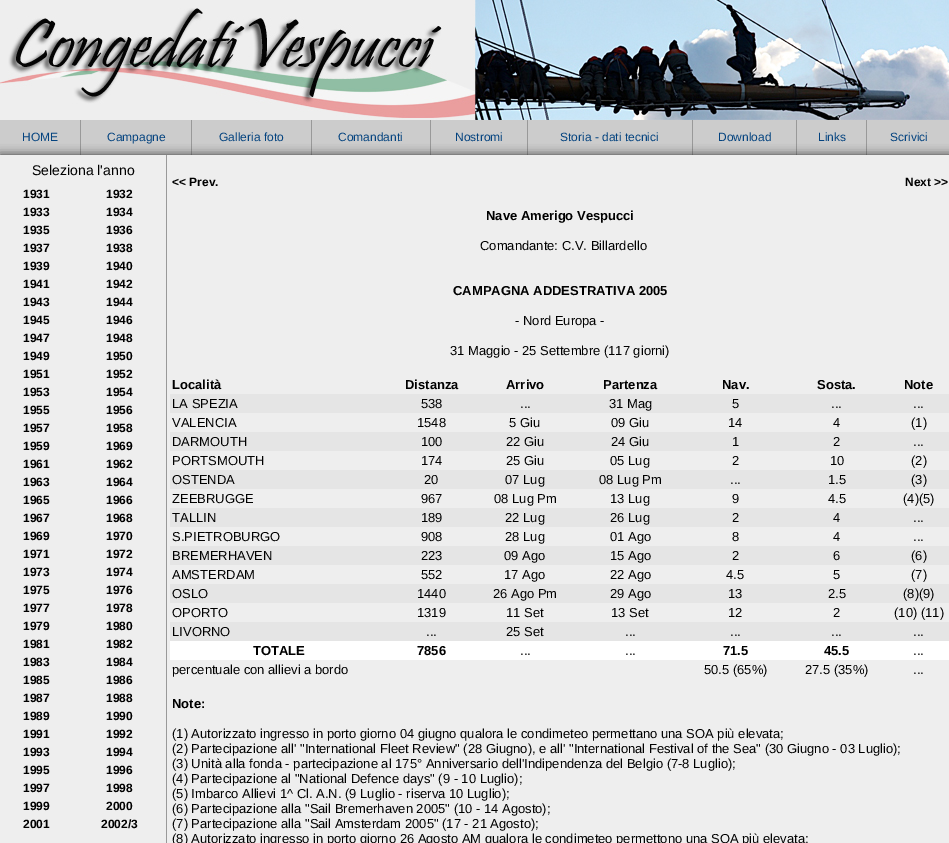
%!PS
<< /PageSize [949 843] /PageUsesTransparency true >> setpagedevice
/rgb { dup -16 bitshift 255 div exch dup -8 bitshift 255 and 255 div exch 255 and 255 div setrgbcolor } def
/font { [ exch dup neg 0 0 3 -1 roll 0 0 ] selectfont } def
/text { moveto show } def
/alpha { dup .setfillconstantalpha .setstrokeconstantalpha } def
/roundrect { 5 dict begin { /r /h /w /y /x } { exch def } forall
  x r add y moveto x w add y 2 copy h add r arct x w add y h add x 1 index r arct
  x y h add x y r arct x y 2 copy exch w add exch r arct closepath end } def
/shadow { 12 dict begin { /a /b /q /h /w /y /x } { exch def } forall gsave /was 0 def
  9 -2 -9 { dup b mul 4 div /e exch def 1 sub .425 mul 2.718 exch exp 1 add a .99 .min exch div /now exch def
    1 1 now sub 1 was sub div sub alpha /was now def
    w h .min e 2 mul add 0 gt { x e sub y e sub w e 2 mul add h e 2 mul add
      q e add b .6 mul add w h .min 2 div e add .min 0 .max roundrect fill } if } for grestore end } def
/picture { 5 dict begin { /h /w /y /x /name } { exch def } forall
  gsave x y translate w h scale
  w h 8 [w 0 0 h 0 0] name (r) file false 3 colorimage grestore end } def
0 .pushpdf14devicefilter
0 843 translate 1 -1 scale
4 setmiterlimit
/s1 { /LiberationSans-Regular 12 font 16#04437F rgb } def
/s2 { /LiberationSans-Regular 14 font 16#000000 rgb } def
/s3 { /LiberationSans-Bold 12 font 16#000000 rgb } def
/s4 { /LiberationSans-Bold 13 font 16#000000 rgb } def
/s5 { /LiberationSans-Regular 13 font 16#000000 rgb } def
16#CCCCCC rgb
0 0 949 843 rectfill
(pic1.raw) 0 0 949 120 picture
16#999999 rgb
80 120 1 35 rectfill
191 120 1 35 rectfill
311 120 1 35 rectfill
430 120 1 35 rectfill
527 120 1 35 rectfill
692 120 1 35 rectfill
796 120 1 35 rectfill
866 120 1 35 rectfill
16#333333 rgb
0 155 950 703 0 5 1 shadow
s1
(HOME) 22 141 text
(Campagne) 107 141 text
(Galleria foto) 219 141 text
(Comandanti) 338 141 text
(Nostromi) 455 141 text
(Storia - dati tecnici) 560 141 text
(Download) 718 141 text
(Links) 818 141 text
(Scrivici) 890 141 text
16#EEEEEE rgb
0 155 949 688 rectfill
16#999999 rgb
166 155 1 688 rectfill
s2
(Seleziona l'anno) 32 175 text
s3
(1931) 23 198 text
(1933) 23 216 text
(1935) 23 234 text
(1937) 23 252 text
(1939) 23 270 text
(1941) 23 288 text
(1943) 23 306 text
(1945) 23 324 text
(1947) 23 342 text
(1949) 23 360 text
(1951) 23 378 text
(1953) 23 396 text
(1955) 23 414 text
(1957) 23 432 text
(1959) 23 450 text
(1961) 23 468 text
(1963) 23 486 text
(1965) 23 504 text
(1967) 23 522 text
(1969) 23 540 text
(1971) 23 558 text
(1973) 23 576 text
(1975) 23 594 text
(1977) 23 612 text
(1979) 23 630 text
(1981) 23 648 text
(1983) 23 666 text
(1985) 23 684 text
(1987) 23 702 text
(1989) 23 720 text
(1991) 23 738 text
(1993) 23 756 text
(1995) 23 774 text
(1997) 23 792 text
(1999) 23 810 text
(2001) 23 828 text
(1932) 106 198 text
(1934) 106 216 text
(1936) 106 234 text
(1938) 106 252 text
(1940) 106 270 text
(1942) 106 288 text
(1944) 106 306 text
(1946) 106 324 text
(1948) 106 342 text
(1950) 106 360 text
(1952) 106 378 text
(1954) 106 396 text
(1956) 106 414 text
(1958) 106 432 text
(1969) 106 450 text
(1962) 106 468 text
(1964) 106 486 text
(1966) 106 504 text
(1968) 106 522 text
(1970) 106 540 text
(1972) 106 558 text
(1974) 106 576 text
(1976) 106 594 text
(1978) 106 612 text
(1980) 106 630 text
(1982) 106 648 text
(1984) 106 666 text
(1986) 106 684 text
(1988) 106 702 text
(1990) 106 720 text
(1992) 106 738 text
(1994) 106 756 text
(1996) 106 774 text
(1998) 106 792 text
(2000) 106 810 text
(2002/3) 101 828 text
(<< Prev.) 172 186 text
(Next >>) 905 186 text
s4
(Nave Amerigo Vespucci) 486 220 text
s5
(Comandante: C.V. Billardello) 480 250 text
s4
(CAMPAGNA ADDESTRATIVA 2005) 453 295 text
s5
(- Nord Europa -) 515 325 text
(31 Maggio - 25 Settembre \(117 giorni\)) 450 355 text
s4
(Località) 172 389 text
(Distanza) 405 389 text
(Arrivo) 506 389 text
(Partenza) 603 389 text
(Nav.) 722 389 text
(Sosta.) 817 389 text
(Note) 904 389 text
16#E5E5E5 rgb
170 394 779 19 rectfill
s5
(LA SPEZIA) 172 408 text
(538) 421 408 text
(...) 520 408 text
(31 Mag) 609 408 text
(5) 732 408 text
(...) 831 408 text
(...) 913 408 text
(VALENCIA) 172 427 text
(1548) 417 427 text
(5 Giu) 509 427 text
(09 Giu) 611 427 text
(14) 728 427 text
(4) 833 427 text
(\(1\)) 911 427 text
16#E5E5E5 rgb
170 432 779 19 rectfill
s5
(DARMOUTH) 172 446 text
(100) 421 446 text
(22 Giu) 506 446 text
(24 Giu) 611 446 text
(1) 732 446 text
(2) 833 446 text
(...) 913 446 text
(PORTSMOUTH) 172 465 text
(174) 421 465 text
(25 Giu) 506 465 text
(05 Lug) 610 465 text
(2) 732 465 text
(10) 830 465 text
(\(2\)) 911 465 text
16#E5E5E5 rgb
170 470 779 19 rectfill
s5
(OSTENDA) 172 484 text
(20) 424 484 text
(07 Lug) 505 484 text
(08 Lug Pm) 599 484 text
(...) 730 484 text
(1.5) 828 484 text
(\(3\)) 911 484 text
(ZEEBRUGGE) 172 503 text
(967) 421 503 text
(08 Lug Pm) 494 503 text
(13 Lug) 610 503 text
(9) 732 503 text
(4.5) 828 503 text
(\(4\)\(5\)) 903 503 text
16#E5E5E5 rgb
170 508 779 19 rectfill
s5
(TALLIN) 172 522 text
(189) 421 522 text
(22 Lug) 505 522 text
(26 Lug) 610 522 text
(2) 732 522 text
(4) 833 522 text
(...) 913 522 text
(S.PIETROBURGO) 172 541 text
(908) 421 541 text
(28 Lug) 505 541 text
(01 Ago) 610 541 text
(8) 732 541 text
(4) 833 541 text
(...) 913 541 text
16#E5E5E5 rgb
170 546 779 19 rectfill
s5
(BREMERHAVEN) 172 560 text
(223) 421 560 text
(09 Ago) 504 560 text
(15 Ago) 610 560 text
(2) 732 560 text
(6) 833 560 text
(\(6\)) 911 560 text
(AMSTERDAM) 172 579 text
(552) 421 579 text
(17 Ago) 504 579 text
(22 Ago) 610 579 text
(4.5) 726 579 text
(5) 833 579 text
(\(7\)) 911 579 text
16#E5E5E5 rgb
170 584 779 19 rectfill
s5
(OSLO) 172 598 text
(1440) 417 598 text
(26 Ago Pm) 493 598 text
(29 Ago) 610 598 text
(13) 728 598 text
(2.5) 828 598 text
(\(8\)\(9\)) 903 598 text
(OPORTO) 172 617 text
(1319) 417 617 text
(11 Set) 506 617 text
(13 Set) 611 617 text
(12) 728 617 text
(2) 833 617 text
(\(10\) \(11\)) 894 617 text
16#E5E5E5 rgb
170 622 779 19 rectfill
s5
(LIVORNO) 172 636 text
(...) 426 636 text
(25 Set) 506 636 text
(...) 625 636 text
(...) 730 636 text
(...) 831 636 text
(...) 913 636 text
16#FFFFFF rgb
170 641 779 19 rectfill
s4
(TOTALE) 253 655 text
(7856) 417 655 text
s5
(...) 520 655 text
(...) 625 655 text
s4
(71.5) 723 655 text
(45.5) 824 655 text
s5
(...) 913 655 text
(percentuale con allievi a bordo) 172 674 text
(50.5 \(65%\)) 704 674 text
(27.5 \(35%\)) 805 674 text
(...) 913 674 text
s4
(Note:) 172 708 text
s5
(\(1\) Autorizzato ingresso in porto giorno 04 giugno qualora le condimeteo permettano una SOA più elevata;) 172 738 text
(\(2\) Partecipazione all' "International Fleet Review" \(28 Giugno\), e all' "International Festival of the Sea" \(30 Giugno - 03 Luglio\);) 172 753 text
(\(3\) Unità alla fonda - partecipazione al 175° Anniversario dell'Indipendenza del Belgio \(7-8 Luglio\);) 172 768 text
(\(4\) Partecipazione al "National Defence days" \(9 - 10 Luglio\);) 172 783 text
(\(5\) Imbarco Allievi 1^ Cl. A.N. \(9 Luglio - riserva 10 Luglio\);) 172 798 text
(\(6\) Partecipazione alla "Sail Bremerhaven 2005" \(10 - 14 Agosto\);) 172 813 text
(\(7\) Partecipazione alla "Sail Amsterdam 2005" \(17 - 21 Agosto\);) 172 828 text
(\(8\) Autorizzato ingresso in porto giorno 26 Agosto AM qualora le condimeteo permettono una SOA più elevata;) 172 843 text
.poppdf14devicefilter showpage
